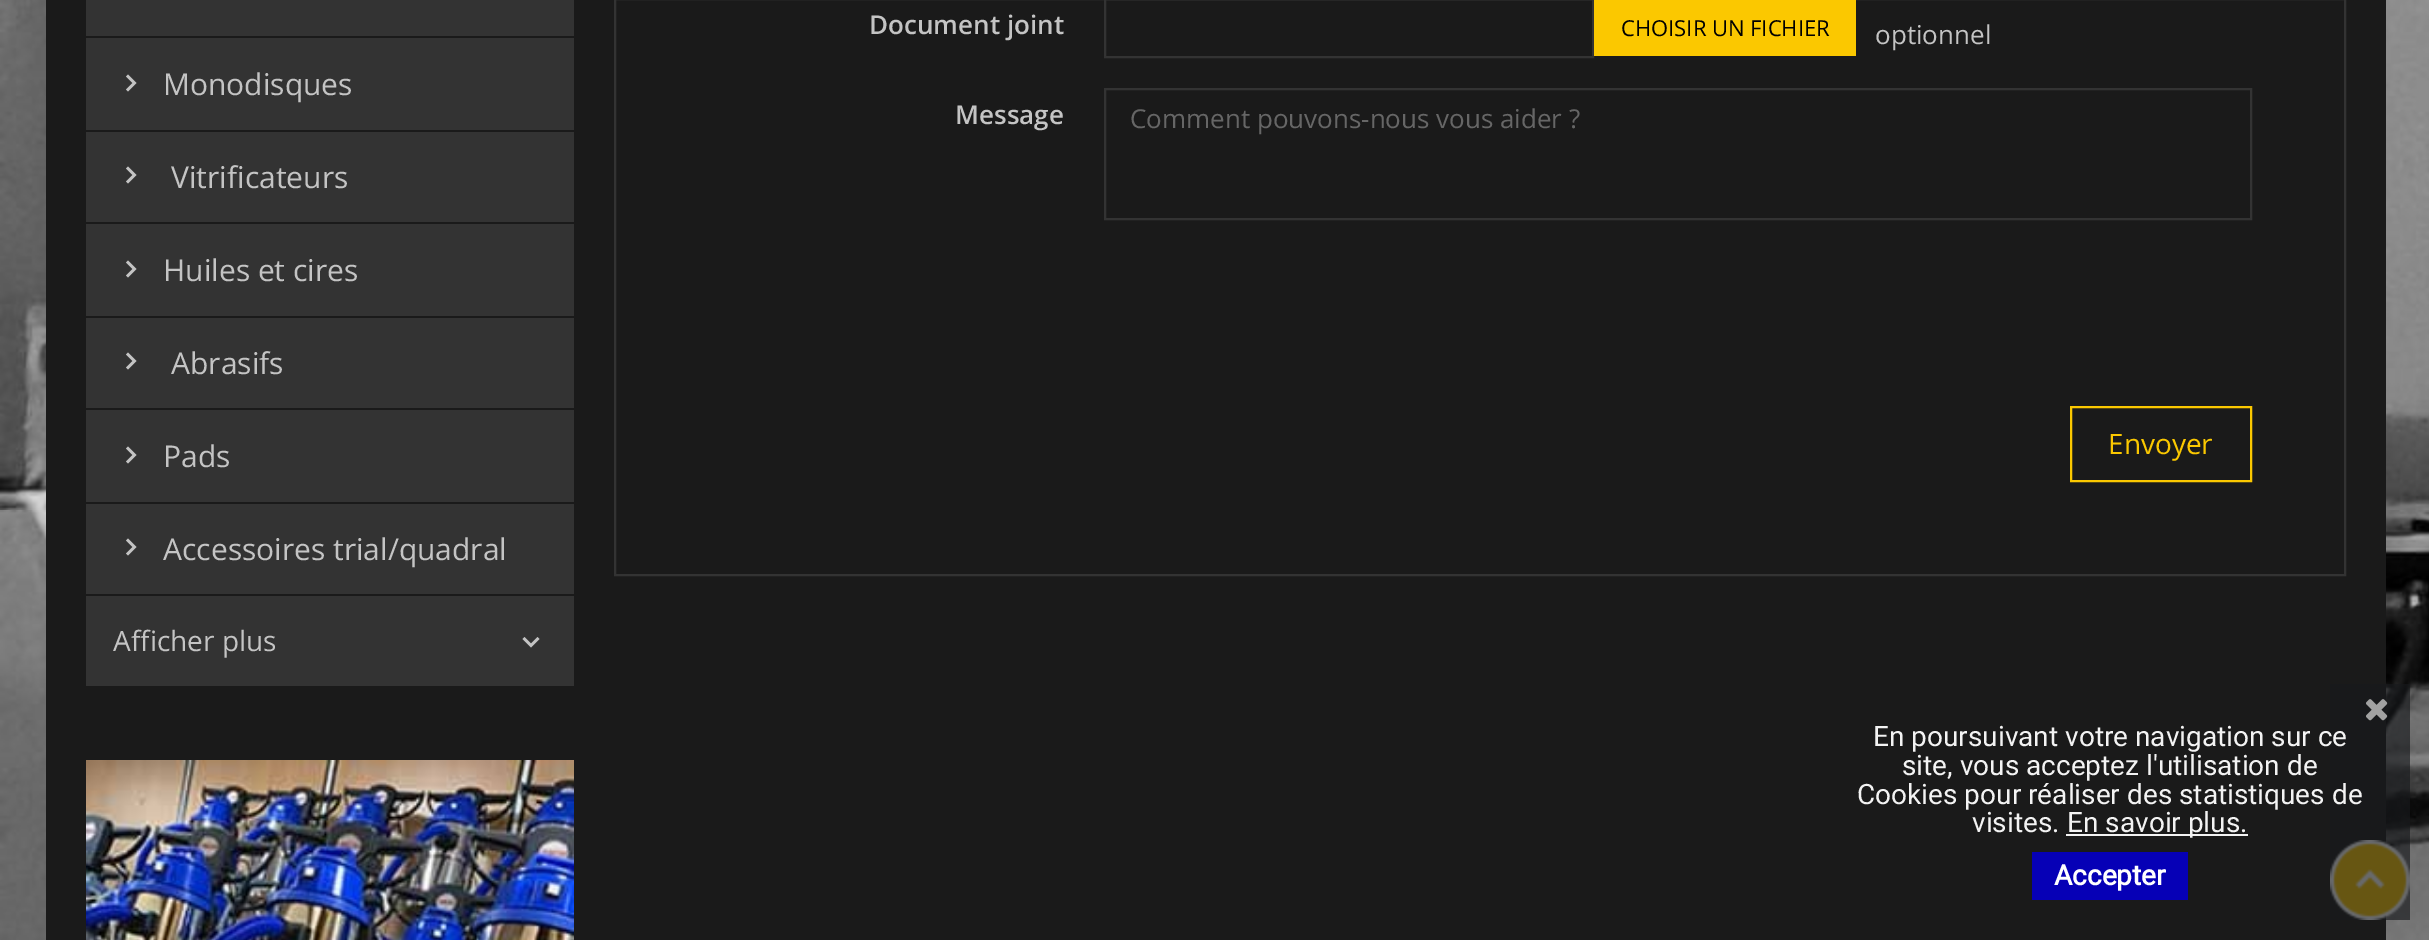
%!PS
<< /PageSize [2429 940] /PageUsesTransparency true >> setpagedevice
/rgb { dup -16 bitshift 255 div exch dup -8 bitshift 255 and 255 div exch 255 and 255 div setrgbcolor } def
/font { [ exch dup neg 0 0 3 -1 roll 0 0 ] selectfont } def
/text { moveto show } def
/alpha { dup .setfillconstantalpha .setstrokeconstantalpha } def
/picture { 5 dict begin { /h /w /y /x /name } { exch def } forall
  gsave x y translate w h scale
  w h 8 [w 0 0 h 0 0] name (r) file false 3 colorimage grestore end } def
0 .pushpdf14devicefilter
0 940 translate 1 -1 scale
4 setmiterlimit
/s1 { /OpenSans-Regular 30 font 16#C4C4C4 rgb } def
/s2 { /OpenSans-Regular 28 font 16#C4C4C4 rgb } def
/s3 { /OpenSans-SemiBold 26 font 16#C4C4C4 rgb } def
/s4 { /OpenSans-Regular 22 font 16#000000 rgb } def
/s5 { /OpenSans-Regular 26 font 16#C4C4C4 rgb } def
/s6 { /OpenSans-Regular 26 font 16#666666 rgb } def
/s7 { /OpenSans-Regular 28 font 16#FBC800 rgb } def
/s8 { /Roboto-Regular 28 font 16#F3F3F3 rgb } def
/s9 { /Roboto-Bold 28 font 16#FFFFFF rgb } def
16#FFFFFF rgb
0 0 2429 940 rectfill
(pic1.raw) 0 0 2429 940 picture
16#1A1A1A rgb
46 0 2340 940 rectfill
16#333333 rgb
86 0 488 36 rectfill
86 38 488 92 rectfill
16#C4C4C4 rgb
128 74.5 moveto 136.5 83 lineto 128 91.5 lineto 126 89.5 lineto 132.5 83 lineto 126 76.5 lineto closepath fill
s1
(Monodisques) 163 95 text
16#333333 rgb
86 132 488 90 rectfill
16#C4C4C4 rgb
128 166.5 moveto 136.5 175 lineto 128 183.5 lineto 126 181.5 lineto 132.5 175 lineto 126 168.5 lineto closepath fill
(Vitrificateurs) 171 188 text
16#333333 rgb
86 224 488 92 rectfill
16#C4C4C4 rgb
128 260.5 moveto 136.5 269 lineto 128 277.5 lineto 126 275.5 lineto 132.5 269 lineto 126 262.5 lineto closepath fill
(Huiles et cires) 163 281 text
16#333333 rgb
86 318 488 90 rectfill
16#C4C4C4 rgb
128 352.5 moveto 136.5 361 lineto 128 369.5 lineto 126 367.5 lineto 132.5 361 lineto 126 354.5 lineto closepath fill
(Abrasifs) 171 374 text
16#333333 rgb
86 410 488 92 rectfill
16#C4C4C4 rgb
128 446.5 moveto 136.5 455 lineto 128 463.5 lineto 126 461.5 lineto 132.5 455 lineto 126 448.5 lineto closepath fill
(Pads) 163 467 text
16#333333 rgb
86 504 488 90 rectfill
16#C4C4C4 rgb
128 538.5 moveto 136.5 547 lineto 128 555.5 lineto 126 553.5 lineto 132.5 547 lineto 126 540.5 lineto closepath fill
(Accessoires trial/quadral) 163 560 text
16#333333 rgb
86 596 488 90 rectfill
s2
(Afficher plus) 113 651 text
524.5 637 moveto 531 643.5 lineto 537.5 637 lineto 539.5 639 lineto 531 647.5 lineto 522.5 639 lineto closepath fill
(pic2.raw) 86 760 488 180 picture
16#333333 rgb
2 setlinewidth
615 -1 1730 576 rectstroke
s3
(Document joint) 869 34 text
16#333333 rgb
1105 -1 488 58 rectstroke
16#FBC800 rgb
1594 0 262 56 rectfill
s4
(CHOISIR UN FICHIER) 1621 36 text
s5
(optionnel) 1875 44 text
s3
(Message) 955 124 text
16#333333 rgb
1105 89 1146 130 rectstroke
s6
(Comment pouvons-nous vous aider ?) 1130 128 text
16#FBC800 rgb
2071 407 180 74 rectstroke
s7
(Envoyer) 2108 454 text
(pic3.raw) 2330 840 80 80 picture
0.65 alpha
16#17191C rgb
2330 684 80 236 rectfill
1 alpha
(pic4.raw) 2366 699 22 22 picture
s8
(En poursuivant votre navigation sur ce) 1873 746 text
(site, vous acceptez l'utilisation de) 1902 775 text
(Cookies pour réaliser des statistiques de) 1857 804 text
(visites.) 1972 832 text
2066 834 182 2 rectfill
(En savoir plus.) 2067 832 text
16#0600B6 rgb
2032 852 156 48 rectfill
s9
(Accepter) 2054 885 text
.poppdf14devicefilter showpage
